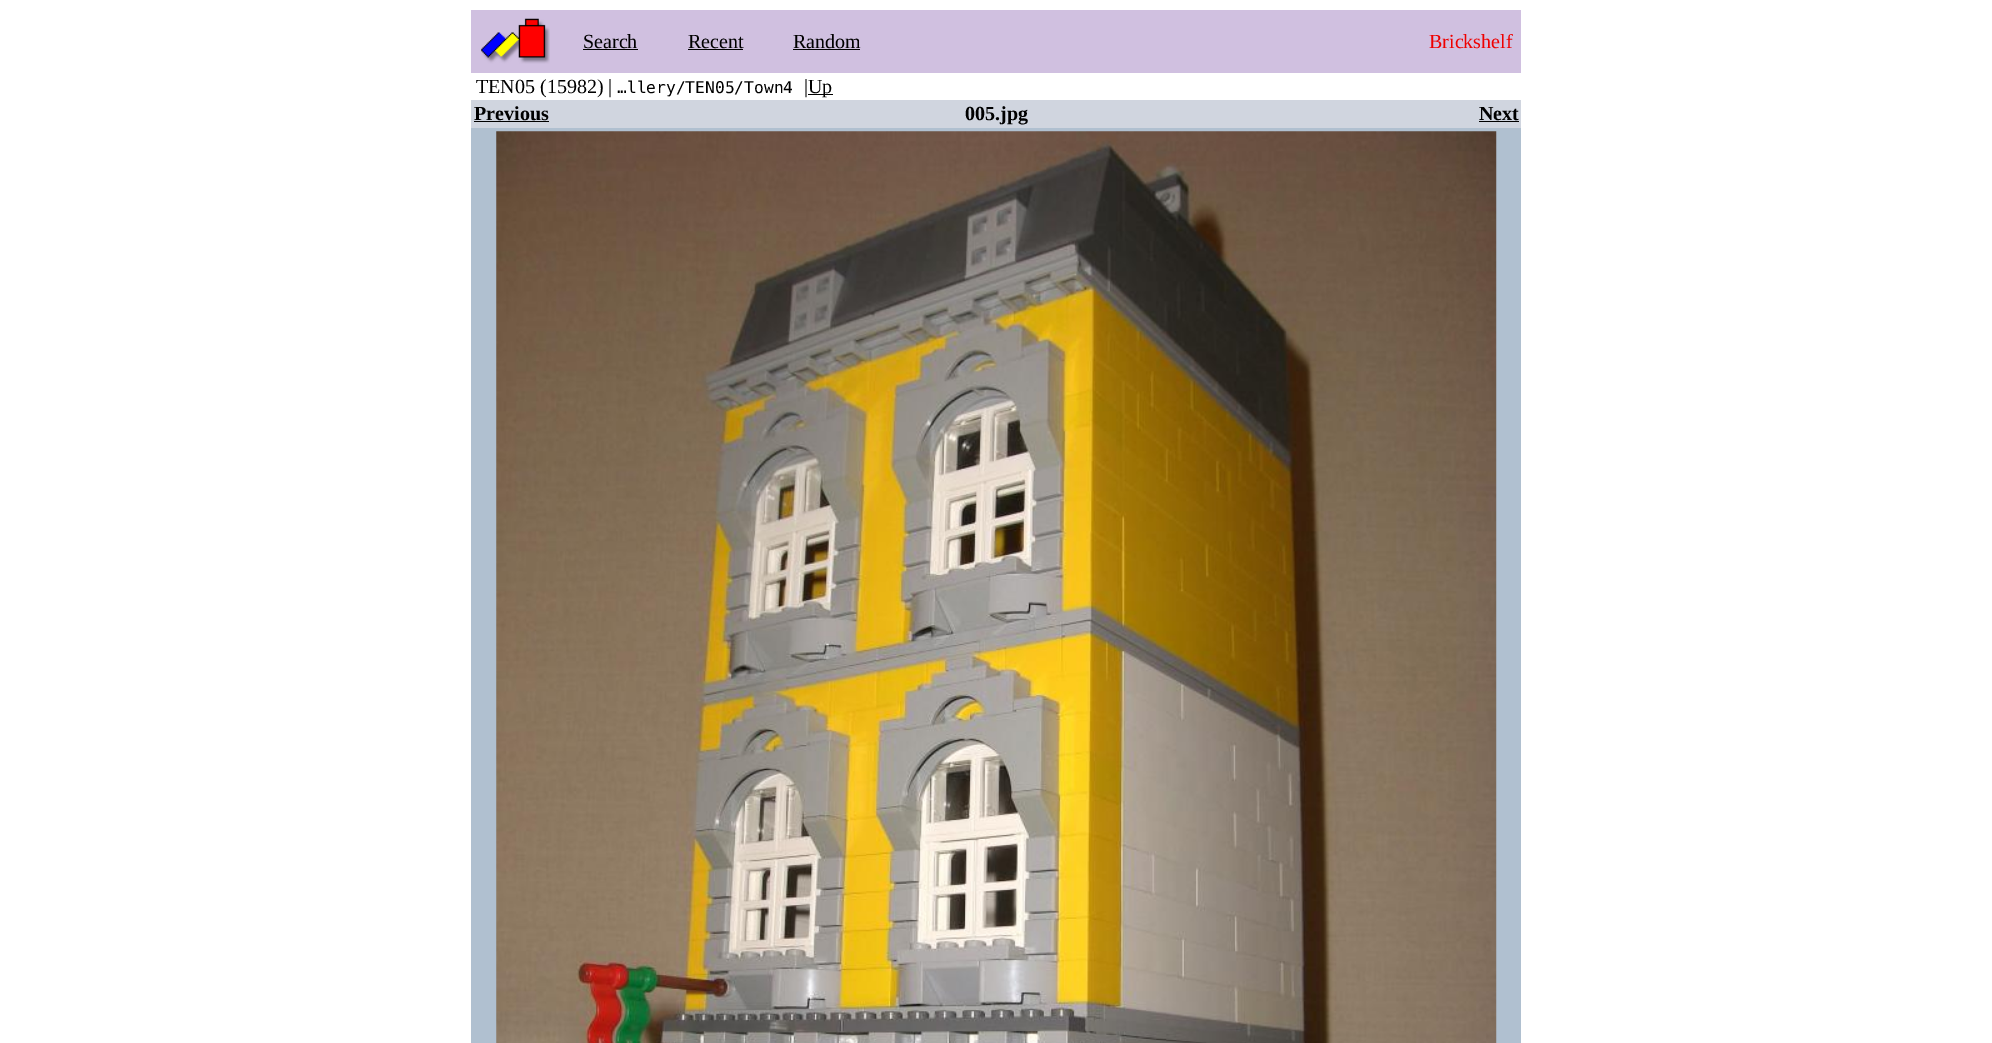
%!PS
<< /PageSize [1992 1043] >> setpagedevice
/rgb { dup -16 bitshift 255 div exch dup -8 bitshift 255 and 255 div exch 255 and 255 div setrgbcolor } def
/font { [ exch dup neg 0 0 3 -1 roll 0 0 ] selectfont } def
/text { moveto show } def
/picture { 5 dict begin { /h /w /y /x /name } { exch def } forall
  gsave x y translate w h scale
  w h 8 [w 0 0 h 0 0] name (r) file false 3 colorimage grestore end } def
0 1043 translate 1 -1 scale
4 setmiterlimit
/s1 { /LiberationSerif-Regular 20 font 16#000000 rgb } def
/s2 { /LiberationSerif-Regular 20 font 16#EF0000 rgb } def
/s3 { /DejaVuSansMono-Regular 16.25 font 16#000000 rgb } def
/s4 { /LiberationSerif-Bold 20 font 16#000000 rgb } def
16#FFFFFF rgb
0 0 1992 1043 rectfill
16#D0C0E0 rgb
471 10 1050 63 rectfill
(pic1.raw) 481 18 69 46 picture
s1
(Search) 583 48 text
583 49 55 1 rectfill
(Recent) 688 48 text
688 49 55 1 rectfill
(Random) 793 48 text
793 49 67 1 rectfill
s2
(Brickshelf) 1429 48 text
s1
(TEN05 \(15982\) |) 476 93 text
s3
(…llery/TEN05/Town4) 617 93 text
s1
(|) 804 93 text
808 94 25 1 rectfill
(Up) 808 93 text
16#D0D5DF rgb
471 100 1050 28 rectfill
s4
(Previous) 474 120 text
474 121 75 1 rectfill
(005.jpg) 965 120 text
(Next) 1479 120 text
1479 121 40 1 rectfill
16#B0C0D0 rgb
471 128 1050 915 rectfill
(pic2.raw) 496 131 1001 912 picture
showpage
